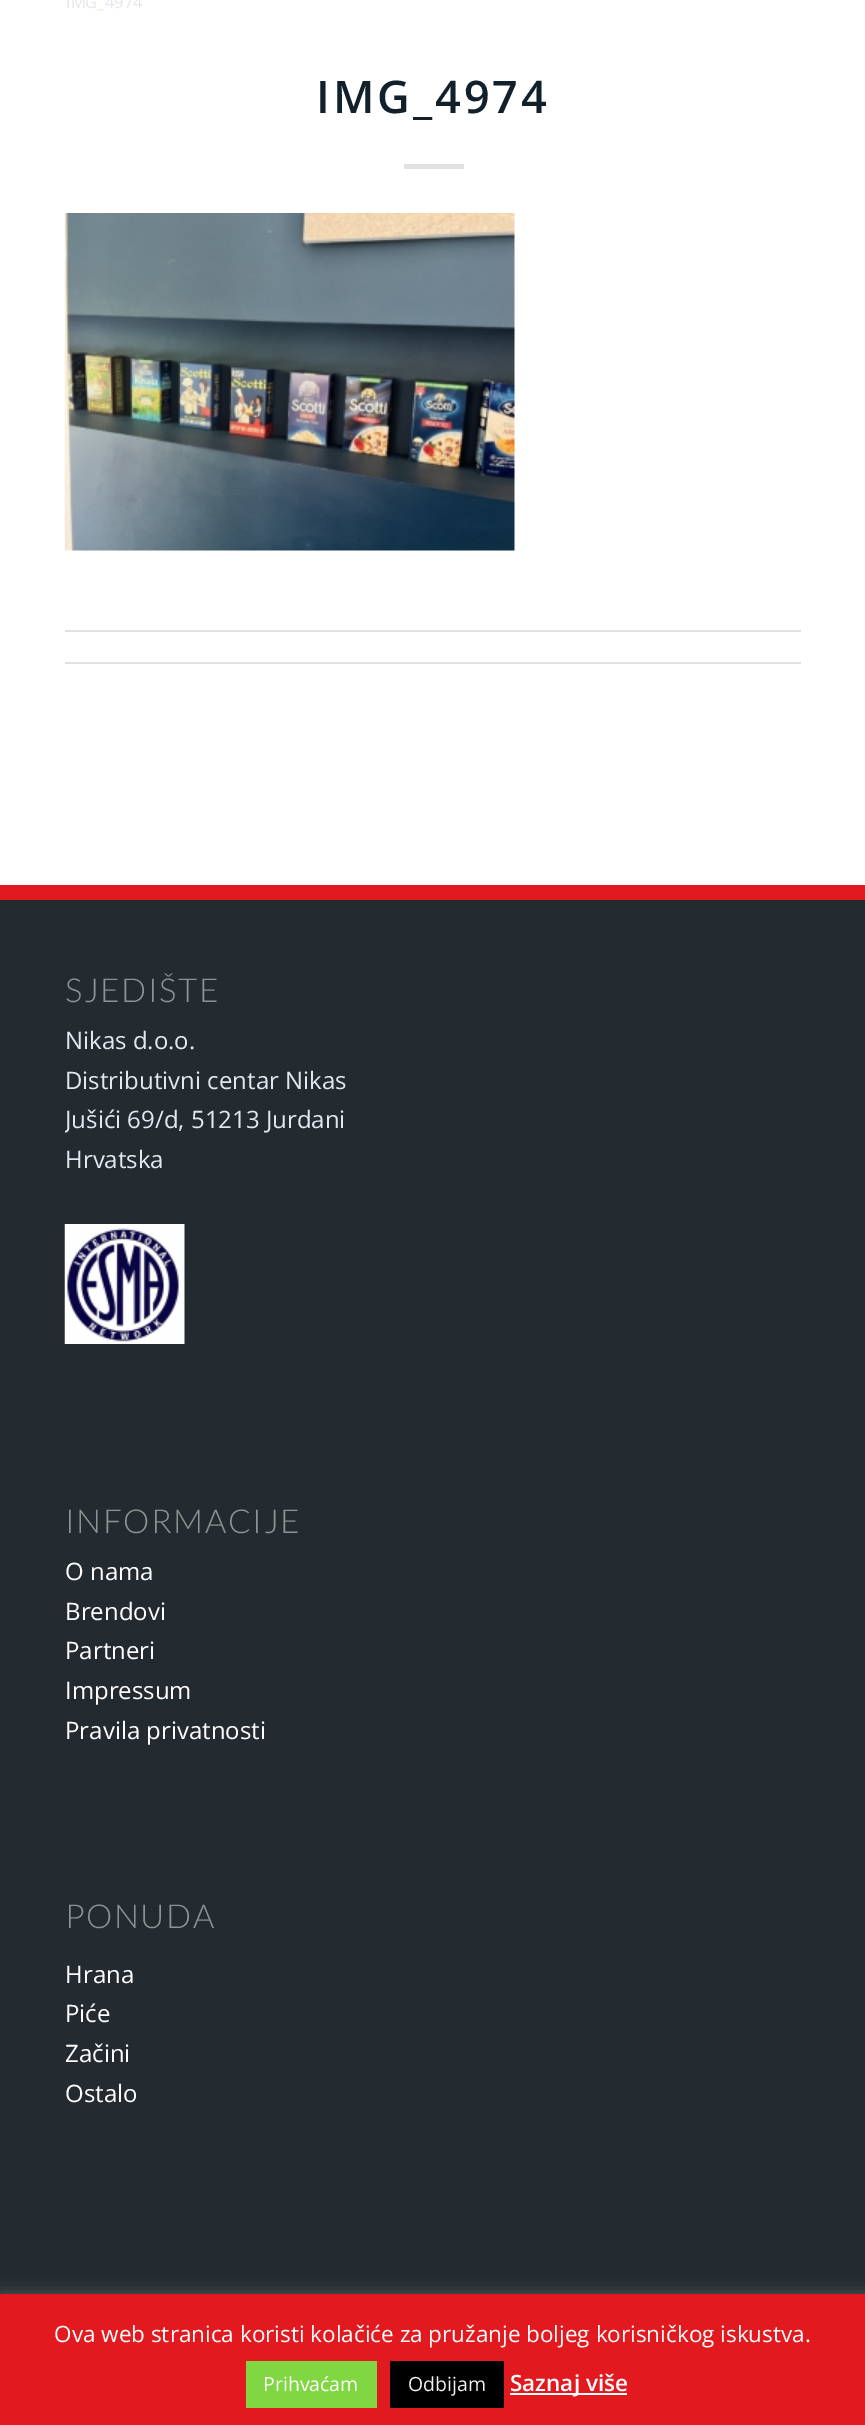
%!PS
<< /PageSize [865 2425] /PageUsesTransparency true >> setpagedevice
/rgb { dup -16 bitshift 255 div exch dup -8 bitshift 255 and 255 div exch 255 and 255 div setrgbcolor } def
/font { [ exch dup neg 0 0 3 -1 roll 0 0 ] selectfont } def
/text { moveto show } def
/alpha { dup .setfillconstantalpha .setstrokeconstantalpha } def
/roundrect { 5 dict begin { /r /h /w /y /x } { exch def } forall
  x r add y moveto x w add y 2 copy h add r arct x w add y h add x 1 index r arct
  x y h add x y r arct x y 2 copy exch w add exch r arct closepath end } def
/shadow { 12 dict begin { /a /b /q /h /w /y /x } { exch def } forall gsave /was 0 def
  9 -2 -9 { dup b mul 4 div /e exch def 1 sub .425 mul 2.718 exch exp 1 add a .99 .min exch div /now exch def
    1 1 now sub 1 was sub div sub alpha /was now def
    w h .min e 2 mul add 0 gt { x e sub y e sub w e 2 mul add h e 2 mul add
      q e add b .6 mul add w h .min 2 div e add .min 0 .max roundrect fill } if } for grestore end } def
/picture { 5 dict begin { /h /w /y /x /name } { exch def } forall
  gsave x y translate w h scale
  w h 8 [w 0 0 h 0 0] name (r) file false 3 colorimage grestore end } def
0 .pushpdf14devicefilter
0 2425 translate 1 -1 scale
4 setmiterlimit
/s1 { /OpenSans-Regular 16.5 font 16#E4E6F0 rgb } def
/s2 { /OpenSans-Regular 24 font 16#E4E6F0 rgb } def
/s3 { /OpenSans-Regular 24 font 16#FFFFFF rgb } def
/s4 { /OpenSans-Regular 22.5 font 16#FFFFFF rgb } def
/s5 { /OpenSans-Regular 19.5 font 16#FFFFFF rgb } def
/s6 { /OpenSans-Regular 19.5 font 16#F2F2F2 rgb } def
/s7 { /OpenSans-SemiBold 22.5 font 16#FFFFFF rgb } def
16#FFFFFF rgb
0 0 865 2425 rectfill
s1
(IMG_4974) 66 8 text
/OpenSans-SemiBold 45 font
16#11202A rgb
316 113 moveto 3 0 (IMG_4974) ashow
16#E1E1E1 rgb
404 164 60 5 rectfill
(pic1.raw) 64 213 451 338 picture
65 630 736 2 rectfill
65 662 736 2 rectfill
16#232B30 rgb
0 900 865 1394 rectfill
16#E21A20 rgb
0 885 865 15 rectfill
/Lato-Light 33 font
16#8E9392 rgb
65 1002 moveto 1.5 0 (SJEDIŠTE) ashow
s2
(Nikas d.o.o.) 65 1049 text
(Distributivni centar Nikas) 65 1089 text
gsave
65 945 736 234 rectclip
(Jušići 69/d, 51213 Jurdani) 65 1128 text
grestore
(Hrvatska) 65 1168 text
(pic2.raw) 64 1224 121 120 picture
/Lato-Light 33 font
16#8E9392 rgb
65 1533 moveto 1.5 0 (INFORMACIJE) ashow
s3
(O nama) 65 1580 text
(Brendovi) 65 1620 text
(Partneri) 65 1659 text
(Impressum) 65 1699 text
(Pravila privatnosti) 65 1739 text
/Lato-Light 33 font
16#8E9392 rgb
65 1928 moveto 1.5 0 (PONUDA) ashow
s3
(Hrana) 65 1983 text
(Piće) 65 2022 text
(Začini) 65 2062 text
(Ostalo) 65 2102 text
16#ACABAB rgb
0 2292 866 132 0 7.5 0.3 shadow
16#E21A20 rgb
0 2294 865 131 rectfill
s4
(Ova web stranica koristi kolačiće za pružanje boljeg korisničkog iskustva.) 54 2342 text
16#81D742 rgb
246 2361 131 47 rectfill
s5
(Prihvaćam) 263 2391 text
16#000000 rgb
390 2361 114 47 rectfill
s6
(Odbijam) 408 2391 text
16#FFFFFF rgb
510 2393 117 2 rectfill
s7
(Saznaj više) 510 2391 text
.poppdf14devicefilter showpage
